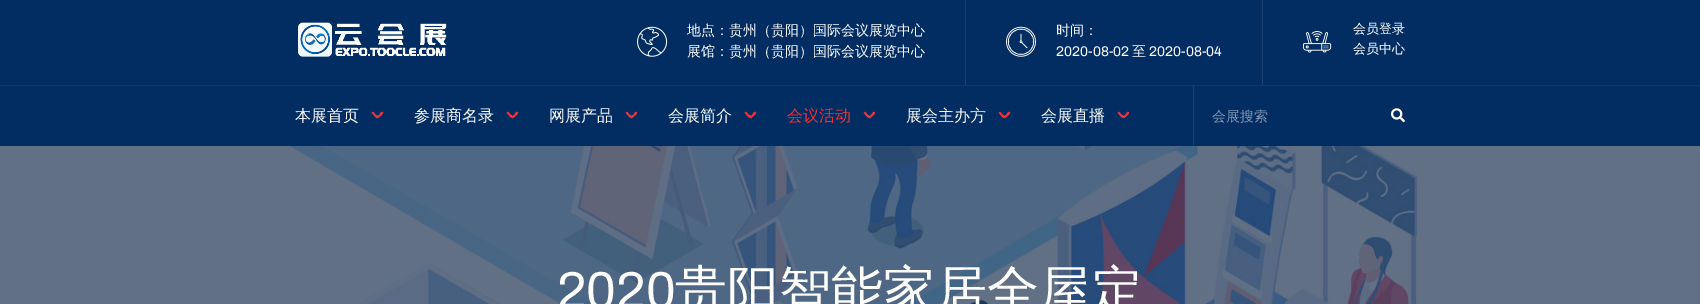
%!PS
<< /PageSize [1700 304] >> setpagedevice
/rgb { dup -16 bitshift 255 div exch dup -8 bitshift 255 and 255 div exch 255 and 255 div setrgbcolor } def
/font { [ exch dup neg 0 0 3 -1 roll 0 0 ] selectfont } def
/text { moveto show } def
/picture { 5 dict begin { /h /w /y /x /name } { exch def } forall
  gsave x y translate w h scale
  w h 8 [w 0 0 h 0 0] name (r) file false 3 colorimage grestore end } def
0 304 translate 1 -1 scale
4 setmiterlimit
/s1 { /WenQuanYiZenHei-Medium 14 font 16#FFFFFF rgb } def
/s2 { /Archivo-Regular 14 font 16#FFFFFF rgb } def
/s3 { /WenQuanYiZenHei-Medium 13 font 16#FFFFFF rgb } def
/s4 { /WenQuanYiZenHei-Medium 16 font 16#FFFFFF rgb } def
/s5 { /WenQuanYiZenHei-Medium 16 font 16#EF3139 rgb } def
/s6 { /WenQuanYiZenHei-Medium 14 font 16#8196B1 rgb } def
/s7 { /Archivo-Regular 52 font 16#FFFFFF rgb } def
/s8 { /WenQuanYiZenHei-Medium 52 font 16#FFFFFF rgb } def
16#022D62 rgb
0 0 1700 304 rectfill
16#113868 rgb
0 85 1700 1 rectfill
(pic1.raw) 298 22 149 35 picture
16#1B4272 rgb
965 0 1 85 rectfill
(pic2.raw) 637 26 31 31 picture
s1
(地点：贵州（贵阳）国际会议展览中心) 687 35 text
(展馆：贵州（贵阳）国际会议展览中心) 687 56 text
16#1B4272 rgb
1262 0 1 85 rectfill
(pic3.raw) 1006 26 30 31 picture
s1
(时间：) 1056 35 text
s2
(2020-08-02) 1056 56 text
s1
(至) 1132 56 text
s2
(2020-08-04) 1149 56 text
(pic4.raw) 1303 31 29 22 picture
s3
(会员登录) 1353 33 text
(会员中心) 1353 53 text
s4
(本展首页) 295 121 text
16#EF3139 rgb
373.5 112 moveto 375.5 114.5 lineto 376.5 115 379 116.5 378 117.5 curveto 377 119.5 374 115.5 373.5 115 curveto 372 113.5 lineto 371.5 112.5 373 111.5 373.5 112 curveto closepath fill
377 116.5 moveto 379.5 114.5 lineto 380 113.5 381.5 111 382.5 112 curveto 384.5 113 380.5 116 380 116.5 curveto 378.5 118 lineto 377.5 118.5 376.5 117 377 116.5 curveto closepath fill
s4
(参展商名录) 414 121 text
16#EF3139 rgb
508.5 112 moveto 510.5 114.5 lineto 511.5 115 514 116.5 513 117.5 curveto 512 119.5 509 115.5 508.5 115 curveto 507 113.5 lineto 506.5 112.5 508 111.5 508.5 112 curveto closepath fill
512 116.5 moveto 514.5 114.5 lineto 515 113.5 516.5 111 517.5 112 curveto 519.5 113 515.5 116 515 116.5 curveto 513.5 118 lineto 512.5 118.5 511.5 117 512 116.5 curveto closepath fill
s4
(网展产品) 549 121 text
16#EF3139 rgb
627.5 112 moveto 629.5 114.5 lineto 630.5 115 633 116.5 632 117.5 curveto 631 119.5 628 115.5 627.5 115 curveto 626 113.5 lineto 625.5 112.5 627 111.5 627.5 112 curveto closepath fill
631 116.5 moveto 633.5 114.5 lineto 634 113.5 635.5 111 636.5 112 curveto 638.5 113 634.5 116 634 116.5 curveto 632.5 118 lineto 631.5 118.5 630.5 117 631 116.5 curveto closepath fill
s4
(会展简介) 668 121 text
16#EF3139 rgb
746.5 112 moveto 748.5 114.5 lineto 749.5 115 752 116.5 751 117.5 curveto 750 119.5 747 115.5 746.5 115 curveto 745 113.5 lineto 744.5 112.5 746 111.5 746.5 112 curveto closepath fill
750 116.5 moveto 752.5 114.5 lineto 753 113.5 754.5 111 755.5 112 curveto 757.5 113 753.5 116 753 116.5 curveto 751.5 118 lineto 750.5 118.5 749.5 117 750 116.5 curveto closepath fill
(会议活动) 787 121 text
865.5 112 moveto 867.5 114.5 lineto 868.5 115 871 116.5 870 117.5 curveto 869 119.5 866 115.5 865.5 115 curveto 864 113.5 lineto 863.5 112.5 865 111.5 865.5 112 curveto closepath fill
869 116.5 moveto 871.5 114.5 lineto 872 113.5 873.5 111 874.5 112 curveto 876.5 113 872.5 116 872 116.5 curveto 870.5 118 lineto 869.5 118.5 868.5 117 869 116.5 curveto closepath fill
s4
(展会主办方) 906 121 text
16#EF3139 rgb
1000.5 112 moveto 1002.5 114.5 lineto 1003.5 115 1006 116.5 1005 117.5 curveto 1004 119.5 1001 115.5 1000.5 115 curveto 999 113.5 lineto 998.5 112.5 1000 111.5 1000.5 112 curveto closepath fill
1004 116.5 moveto 1006.5 114.5 lineto 1007 113.5 1008.5 111 1009.5 112 curveto 1011.5 113 1007.5 116 1007 116.5 curveto 1005.5 118 lineto 1004.5 118.5 1003.5 117 1004 116.5 curveto closepath fill
s4
(会展直播) 1041 121 text
16#EF3139 rgb
1119.5 112 moveto 1121.5 114.5 lineto 1122.5 115 1125 116.5 1124 117.5 curveto 1123 119.5 1120 115.5 1119.5 115 curveto 1118 113.5 lineto 1117.5 112.5 1119 111.5 1119.5 112 curveto closepath fill
1123 116.5 moveto 1125.5 114.5 lineto 1126 113.5 1127.5 111 1128.5 112 curveto 1130.5 113 1126.5 116 1126 116.5 curveto 1124.5 118 lineto 1123.5 118.5 1122.5 117 1123 116.5 curveto closepath fill
16#1B4272 rgb
1193 86 1 60 rectfill
s6
(会展搜索) 1212 121 text
(pic5.raw) 1391 108 14 15 picture
(pic6.raw) 0 146 1700 158 picture
s7
(2020) 557 308 text
s8
(贵阳智能家居全屋定) 675 308 text
showpage
